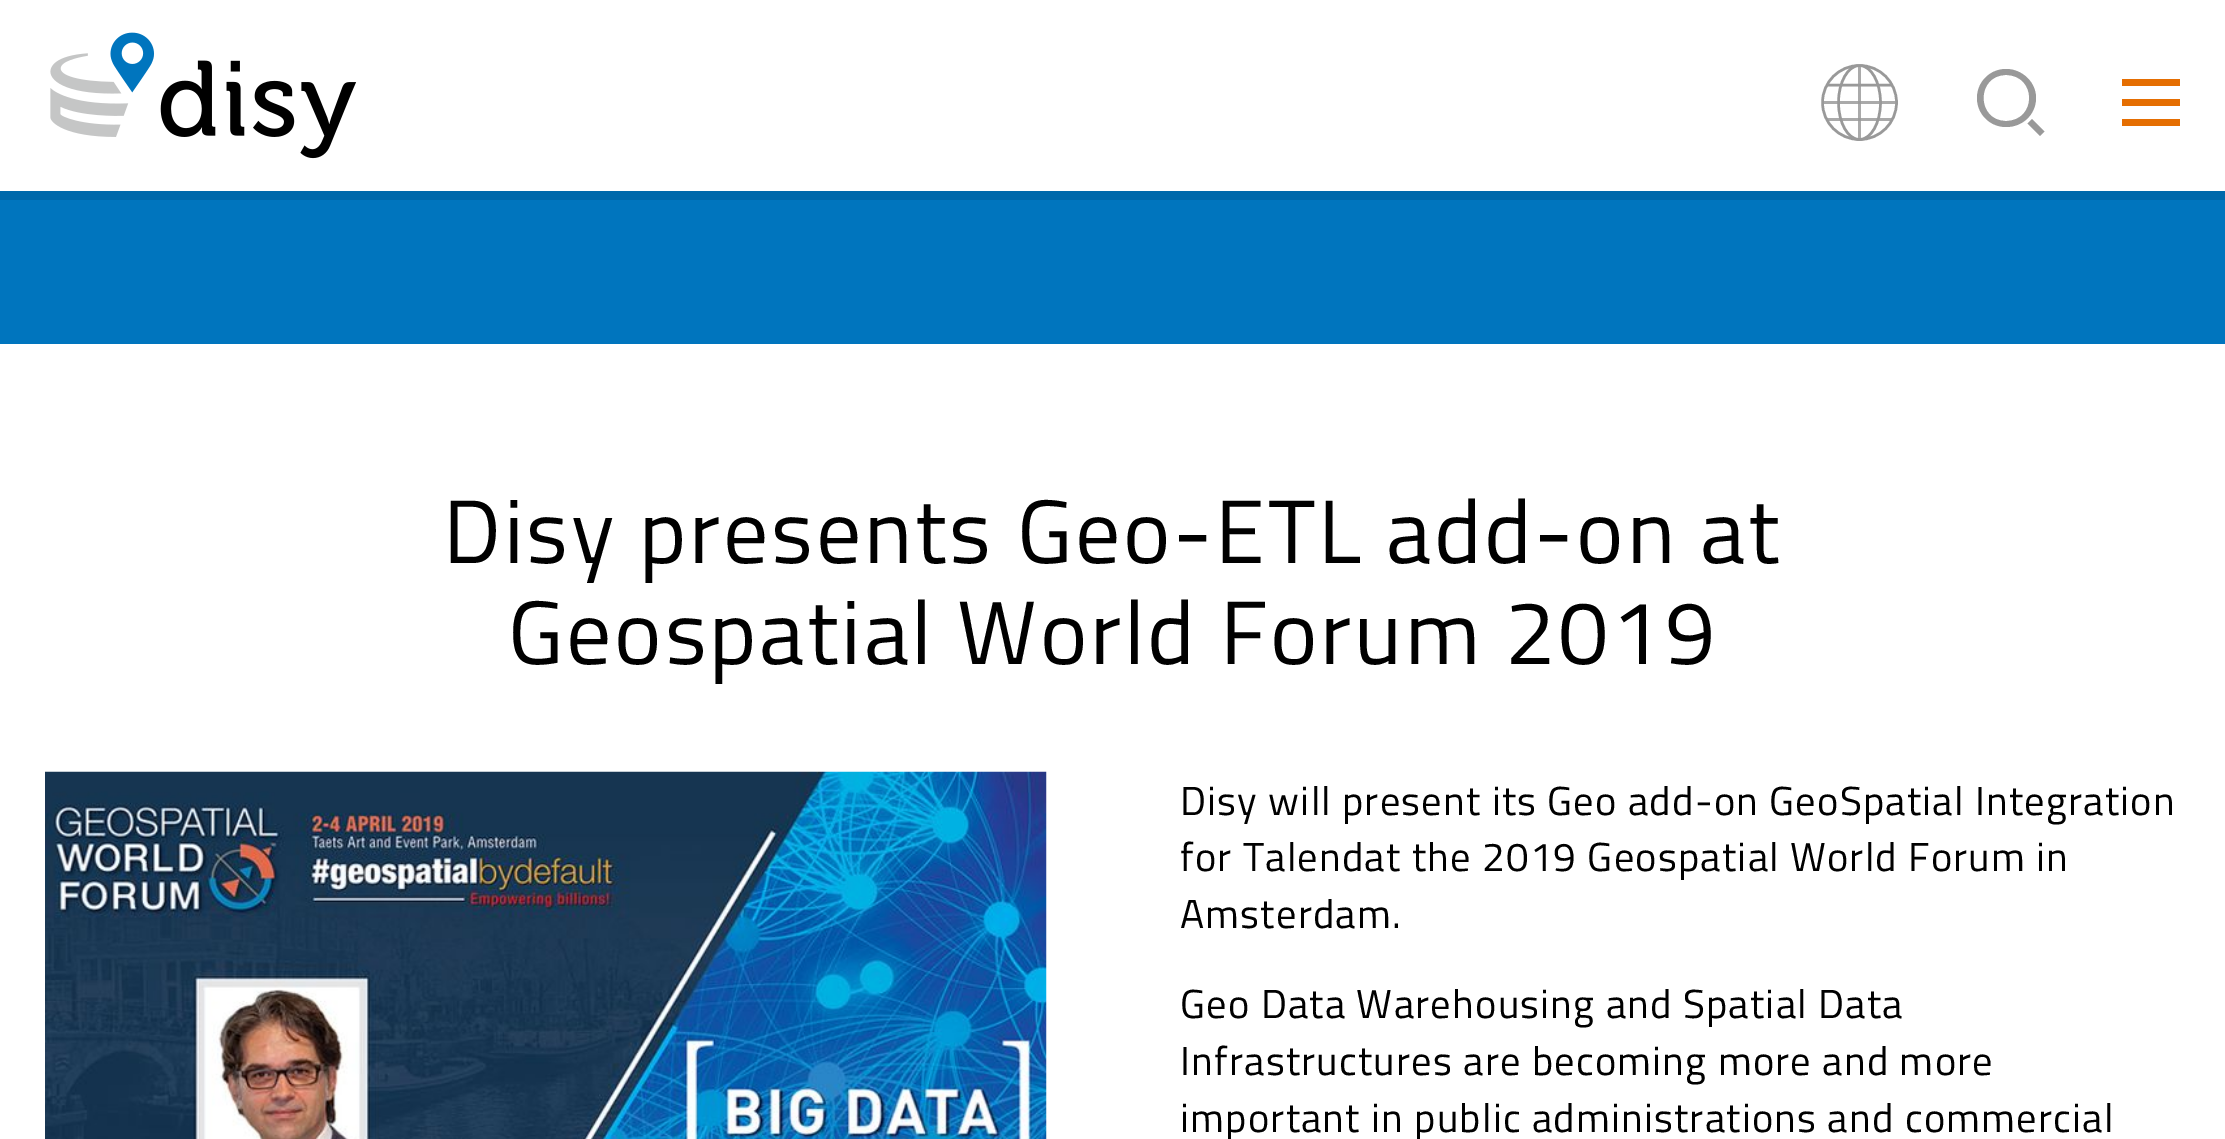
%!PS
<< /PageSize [2225 1139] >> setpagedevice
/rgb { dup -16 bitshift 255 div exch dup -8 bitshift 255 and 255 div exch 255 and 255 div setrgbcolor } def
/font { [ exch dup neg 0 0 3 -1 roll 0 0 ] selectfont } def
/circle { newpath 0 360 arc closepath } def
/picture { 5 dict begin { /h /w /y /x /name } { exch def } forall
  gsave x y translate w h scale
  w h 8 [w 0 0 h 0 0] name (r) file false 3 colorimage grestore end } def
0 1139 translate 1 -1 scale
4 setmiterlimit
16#FFFFFF rgb
0 0 2225 1139 rectfill
16#0069AB rgb
0 191 2225 9 rectfill
16#AAAAAA rgb
1827 118 66 3 rectfill
1823 101 74 3 rectfill
(pic1.raw) 50 32 307 127 picture
1858 66 3 74 rectfill
16#9C9C9C rgb
1858 118 3 3 rectfill
1858 101 3 3 rectfill
16#999999 rgb
2.5 setlinewidth
1827 85 moveto 1892.5 85 lineto stroke
1859.5 65.5 moveto 1871 65.5 1880.5 82 1880.5 102.5 curveto 1880.5 123 1871 139.5 1859.5 139.5 curveto 1848 139.5 1838.5 123 1838.5 102.5 curveto 1838.5 82 1848 65.5 1859.5 65.5 curveto closepath stroke
1859.5 102.5 37 circle stroke
2006 75 moveto 2037 75 2037 121 2006 121 curveto 1976 121 1976 75 2006 75 curveto 2006 69 moveto 1990 69 1977 82 1977 98 curveto 1977 114 1990 127 2006 127 curveto 2023 127 2036 114 2036 98 curveto 2036 82 2022 69 2006 69 curveto closepath fill
2032 119 moveto 2027.5 123.5 lineto 2040 136 lineto 2044.5 131.5 lineto closepath fill
16#E56E02 rgb
2122 79 58 7 rectfill
2122 99 58 7 rectfill
2122 119 58 7 rectfill
16#0075BE rgb
0 200 2225 144 rectfill
/TitilliumWeb-Regular 90 font
16#000000 rgb
443 563 moveto 2.7 0 (Disy presents Geo-ETL add-on at) ashow
508 664 moveto 2.7 0 (Geospatial World Forum 2019) ashow
(pic2.raw) 45 771 1002 368 picture
/TitilliumWeb-Regular 40.5 font
1180 815 moveto 1.22 0 (Disy will present its Geo add-on GeoSpatial Integration) ashow
1180 871 moveto 1.22 0 (for Talendat the 2019 Geospatial World Forum in) ashow
1180 928 moveto 1.22 0 (Amsterdam.) ashow
1180 1018 moveto 1.22 0 (Geo Data Warehousing and Spatial Data) ashow
1180 1075 moveto 1.22 0 (Infrastructures are becoming more and more) ashow
1180 1132 moveto 1.22 0 (important in public administrations and commercial) ashow
showpage
